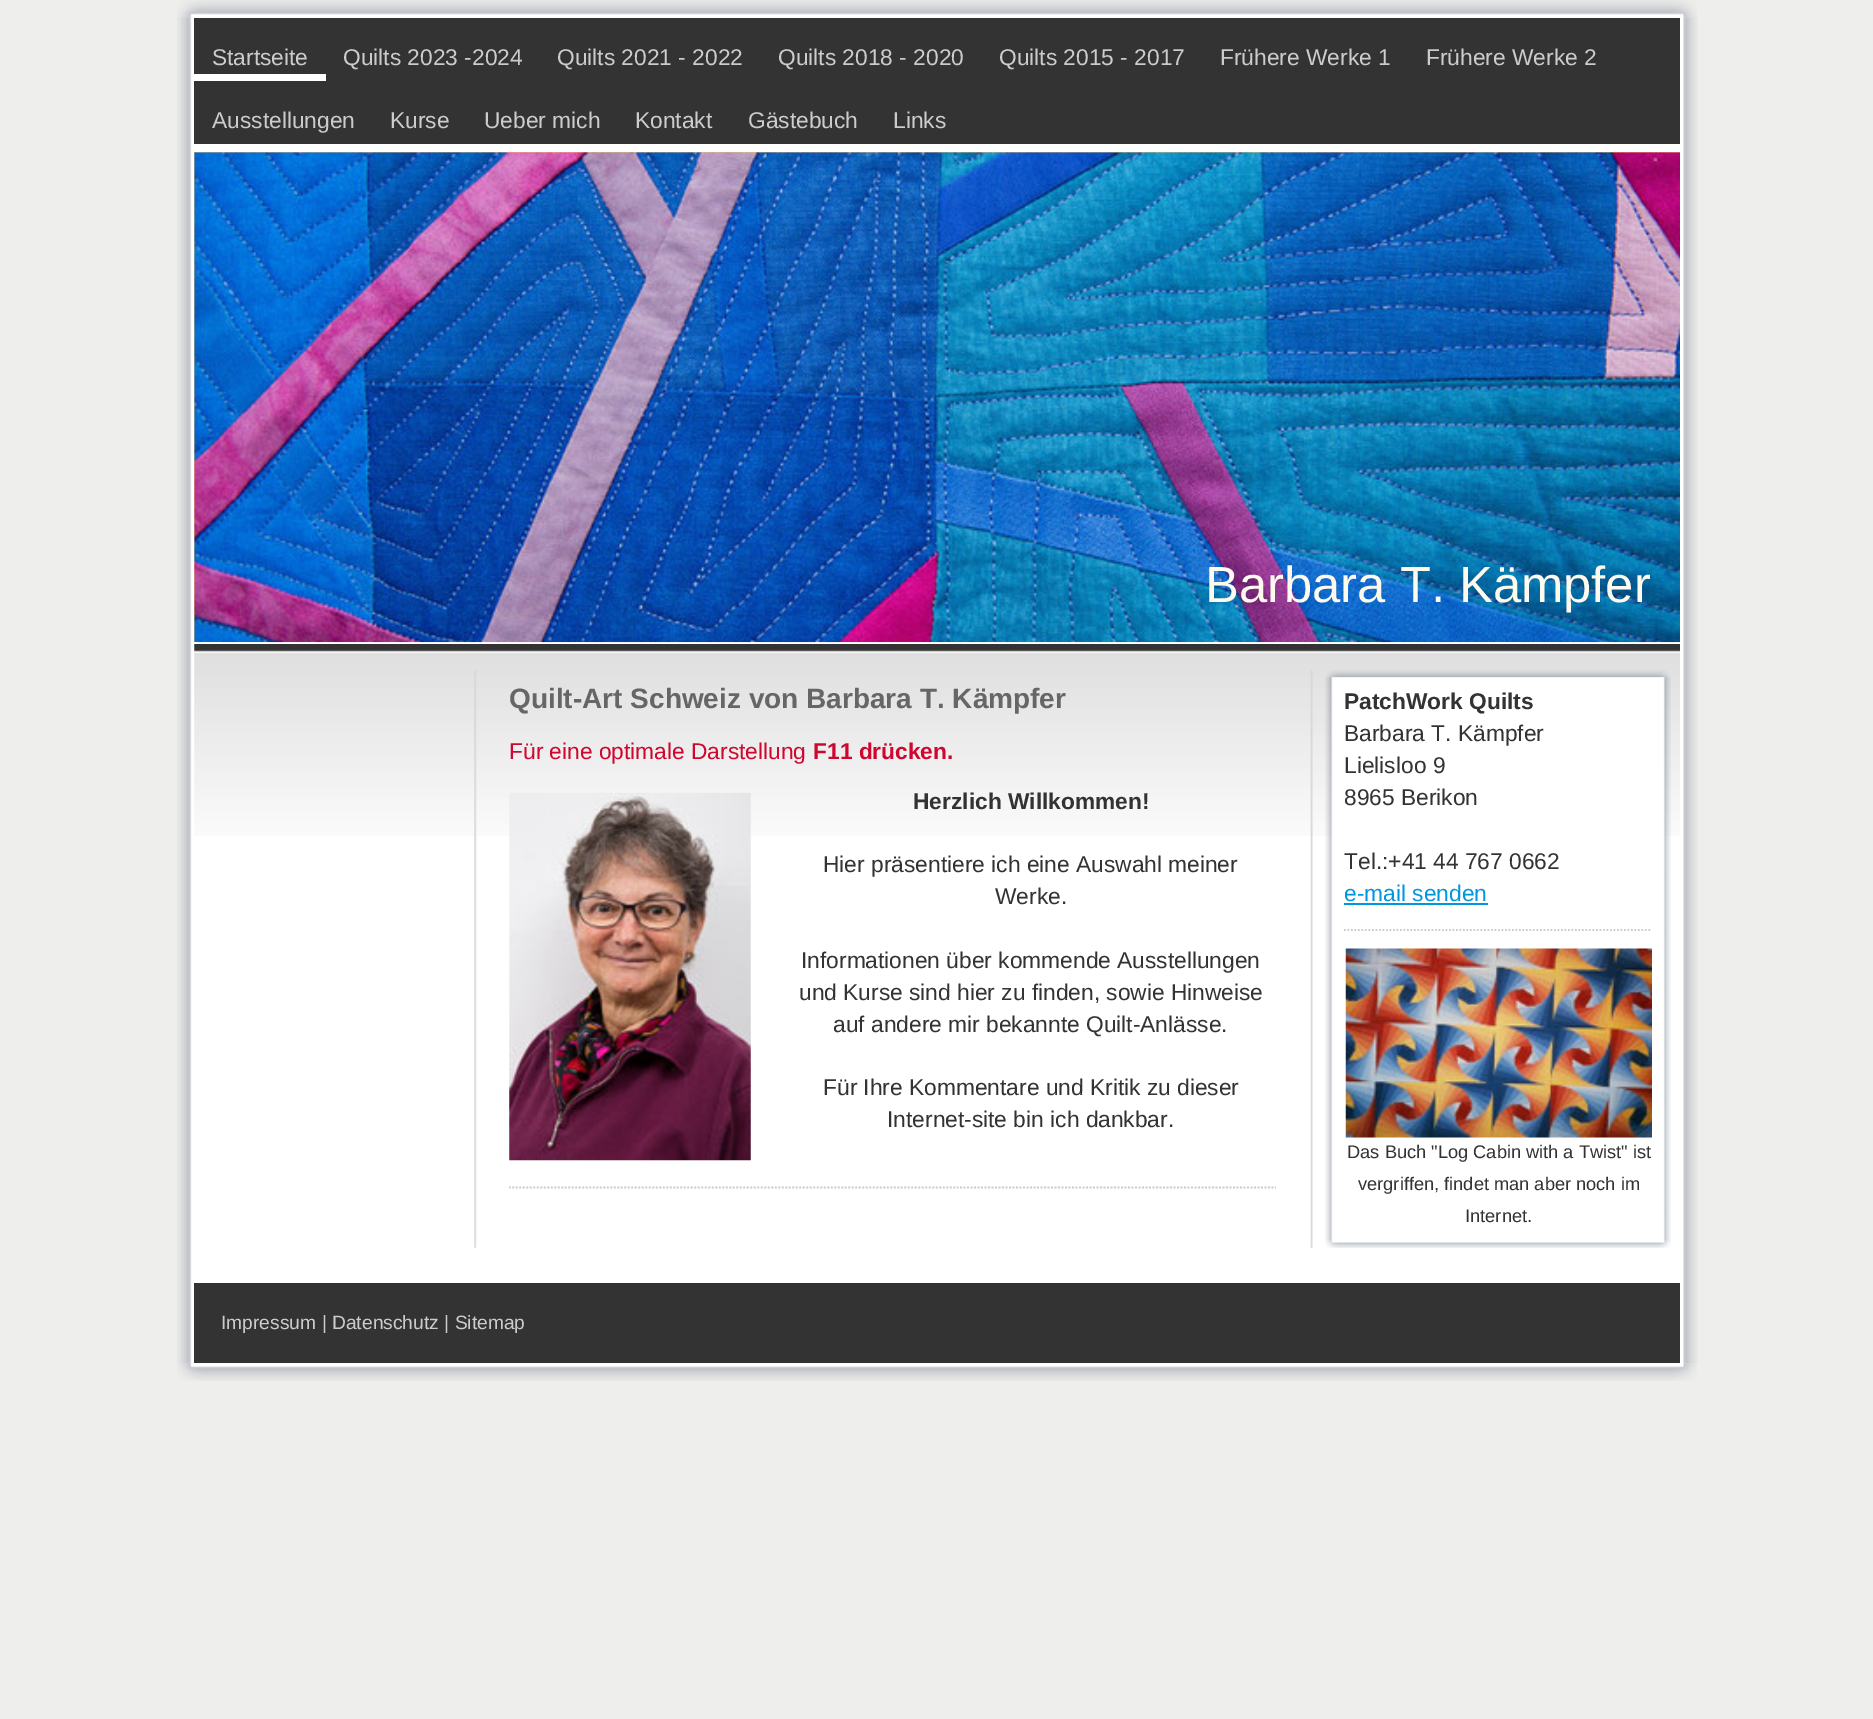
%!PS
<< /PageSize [1873 1719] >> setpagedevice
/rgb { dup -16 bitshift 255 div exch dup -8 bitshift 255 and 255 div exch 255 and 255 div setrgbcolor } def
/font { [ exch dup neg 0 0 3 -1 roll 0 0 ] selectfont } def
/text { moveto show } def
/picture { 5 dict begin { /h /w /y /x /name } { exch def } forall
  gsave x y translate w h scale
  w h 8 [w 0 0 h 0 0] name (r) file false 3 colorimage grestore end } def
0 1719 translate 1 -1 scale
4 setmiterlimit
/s1 { /LiberationSans-Regular 22.75 font 16#CCCCCC rgb } def
/s2 { /LiberationSans-Regular 50.75 font 16#FFFAEE rgb } def
/s3 { /LiberationSans-Bold 28 font 16#666666 rgb } def
/s4 { /LiberationSans-Regular 22.75 font 16#CF072F rgb } def
/s5 { /LiberationSans-Bold 22.75 font 16#CF072F rgb } def
/s6 { /LiberationSans-Bold 22.75 font 16#333333 rgb } def
/s7 { /LiberationSans-Regular 22.75 font 16#333333 rgb } def
/s8 { /LiberationSans-Regular 22.75 font 16#0097DF rgb } def
/s9 { /LiberationSans-Regular 18.25 font 16#333333 rgb } def
/s10 { /LiberationSans-Regular 19.25 font 16#CCCCCC rgb } def
16#EEEEEC rgb
0 0 1873 1719 rectfill
(pic1.raw) 177 0 1520 18 picture
(pic2.raw) 177 17 1521 1347 picture
16#333333 rgb
194 18 1486 126 rectfill
16#FFFFFF rgb
194 74 132 7 rectfill
s1
(Startseite) 212 65 text
(Quilts 2023 -2024) 343 65 text
(Quilts 2021 - 2022) 557 65 text
(Quilts 2018 - 2020) 778 65 text
(Quilts 2015 - 2017) 999 65 text
(Frühere Werke 1) 1220 65 text
(Frühere Werke 2) 1426 65 text
(Ausstellungen) 212 128 text
(Kurse) 390 128 text
(Ueber mich) 484 128 text
(Kontakt) 635 128 text
(Gästebuch) 748 128 text
(Links) 893 128 text
16#F0BB6D rgb
194 152 1486 490 rectfill
(pic3.raw) 194 152 1486 491 picture
s2
(Barbara T. Kämpfer) 1205 602 text
(pic4.raw) 194 644 1486 192 picture
(pic5.raw) 474 670 839 578 picture
s3
(Quilt-Art Schweiz von Barbara T. Kämpfer) 509 708 text
s4
(Für eine optimale Darstellung) 509 759 text
s5
(F11 drücken.) 813 759 text
(pic6.raw) 509 792 242 369 picture
s6
(Herzlich Willkommen!) 913 809 text
s7
(Hier präsentiere ich eine Auswahl meiner) 823 872 text
(Werke.) 995 904 text
(Informationen über kommende Ausstellungen) 801 968 text
(und Kurse sind hier zu finden, sowie Hinweise) 799 1000 text
(auf andere mir bekannte Quilt-Anlässe.) 833 1032 text
(Für Ihre Kommentare und Kritik zu dieser) 823 1095 text
(Internet-site bin ich dankbar.) 887 1127 text
16#CCCCCC rgb
1.8 setlinewidth
[1.75 1.75] 0 setdash
509 1187.5 moveto 1276 1187.5 lineto stroke
(pic7.raw) 1326 670 344 8 picture
(pic10.raw) 1325 1240 346 8 picture
(pic8.raw) 1325 677 346 564 picture
s6
(PatchWork Quilts) 1344 709 text
s7
(Barbara T. Kämpfer) 1344 741 text
(Lielisloo 9) 1344 773 text
(8965 Berikon) 1344 805 text
(Tel.:+41 44 767 0662) 1344 869 text
s8
(e-mail senden) 1344 901 text
1344 903 144 2 rectfill
16#CCCCCC rgb
1344 930 moveto 1652 930 lineto stroke
(pic9.raw) 1345 948 307 190 picture
s9
(Das Buch "Log Cabin with a Twist" ist) 1347 1158 text
(vergriffen, findet man aber noch im) 1358 1190 text
(Internet.) 1465 1222 text
194 1283 1486 80 rectfill
s10
(Impressum | Datenschutz | Sitemap) 221 1329 text
(pic11.raw) 177 1363 1520 18 picture
showpage
